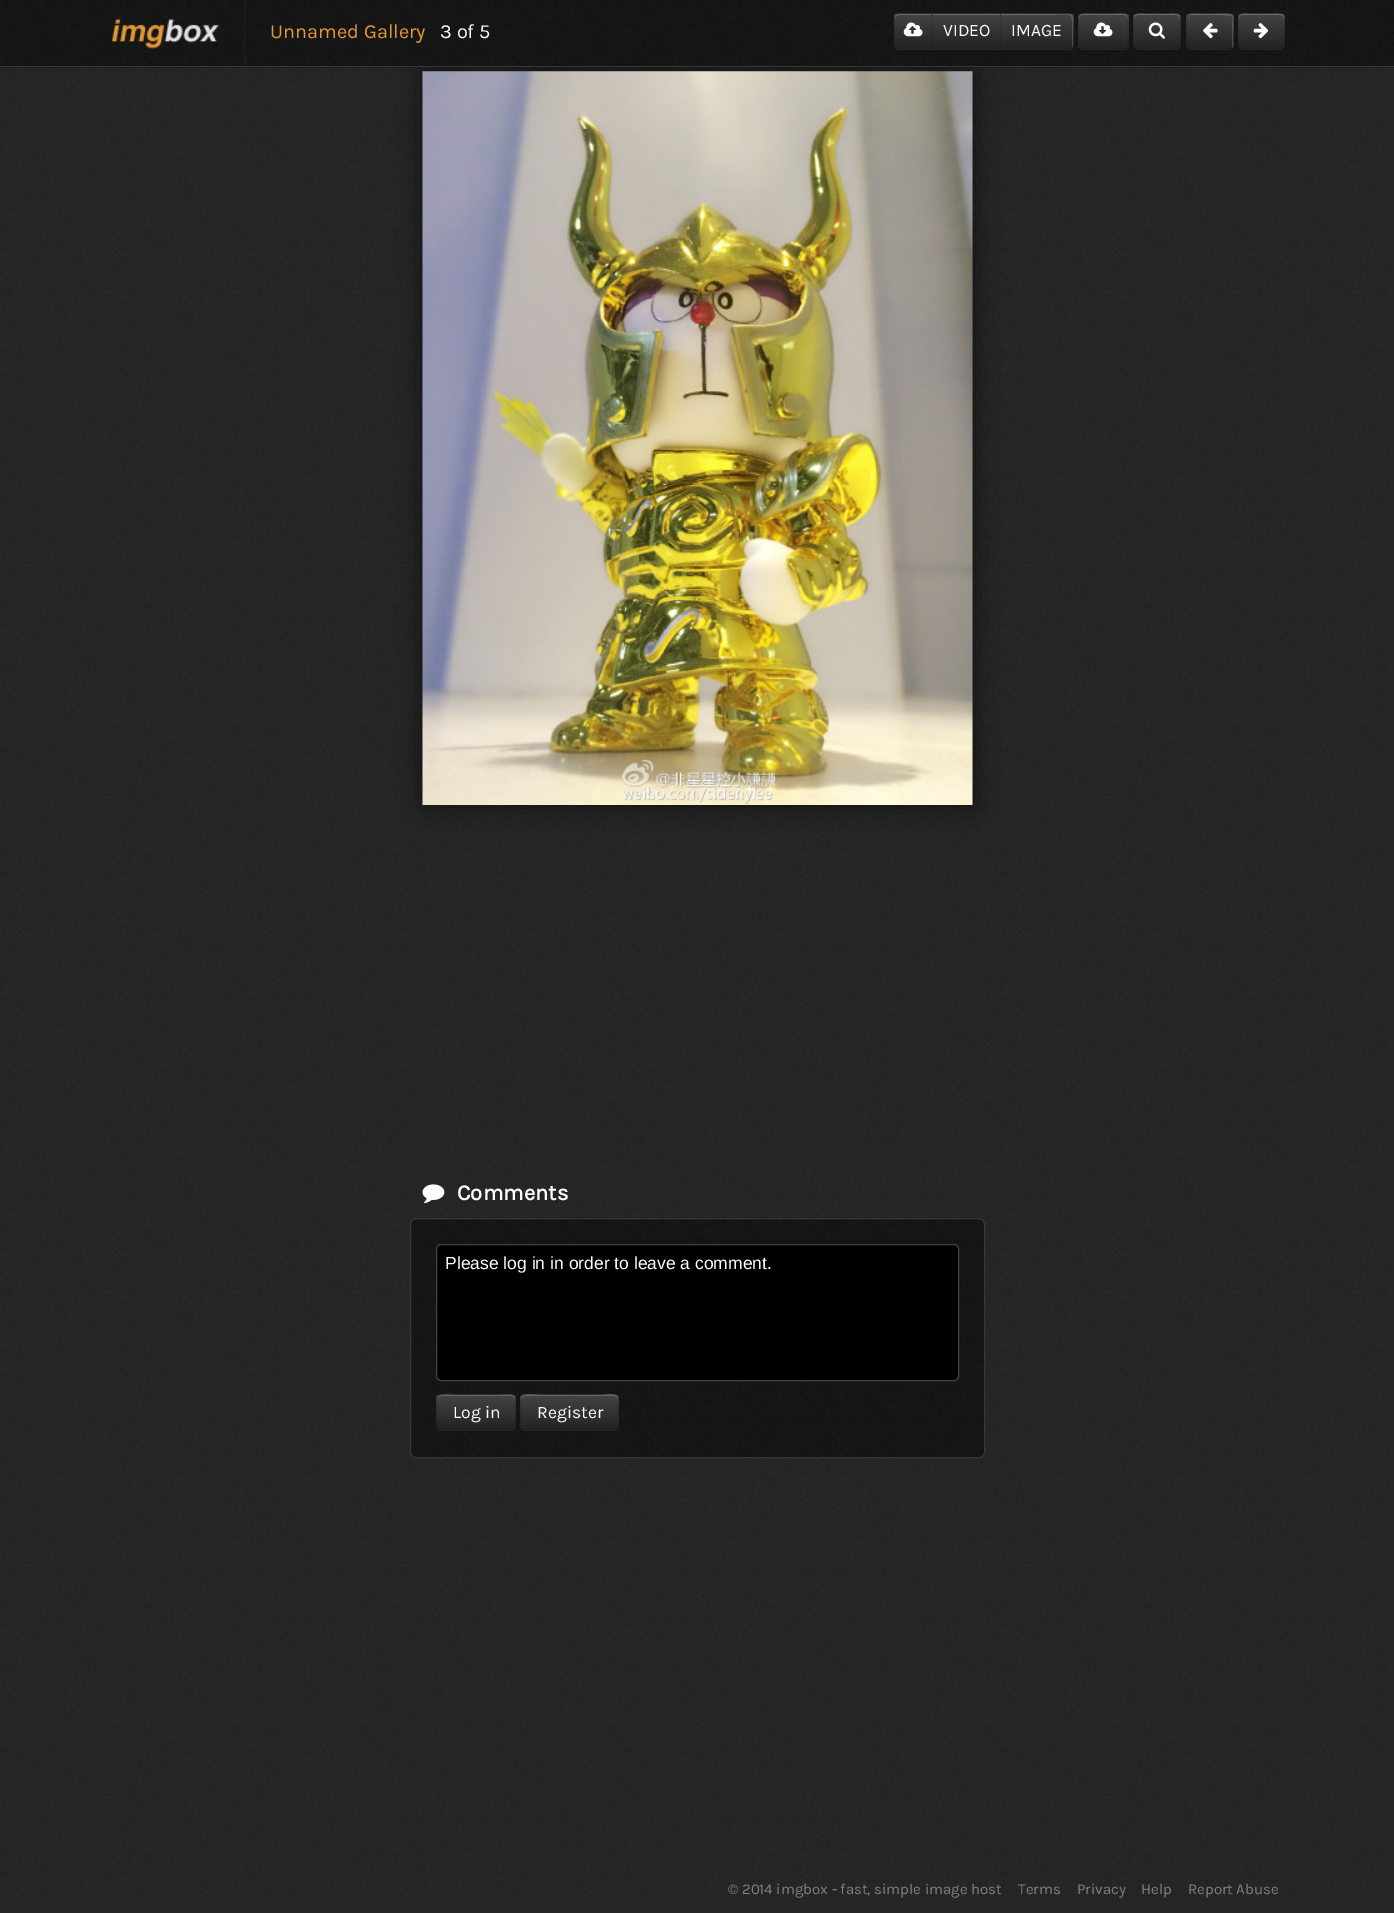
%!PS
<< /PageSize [1394 1913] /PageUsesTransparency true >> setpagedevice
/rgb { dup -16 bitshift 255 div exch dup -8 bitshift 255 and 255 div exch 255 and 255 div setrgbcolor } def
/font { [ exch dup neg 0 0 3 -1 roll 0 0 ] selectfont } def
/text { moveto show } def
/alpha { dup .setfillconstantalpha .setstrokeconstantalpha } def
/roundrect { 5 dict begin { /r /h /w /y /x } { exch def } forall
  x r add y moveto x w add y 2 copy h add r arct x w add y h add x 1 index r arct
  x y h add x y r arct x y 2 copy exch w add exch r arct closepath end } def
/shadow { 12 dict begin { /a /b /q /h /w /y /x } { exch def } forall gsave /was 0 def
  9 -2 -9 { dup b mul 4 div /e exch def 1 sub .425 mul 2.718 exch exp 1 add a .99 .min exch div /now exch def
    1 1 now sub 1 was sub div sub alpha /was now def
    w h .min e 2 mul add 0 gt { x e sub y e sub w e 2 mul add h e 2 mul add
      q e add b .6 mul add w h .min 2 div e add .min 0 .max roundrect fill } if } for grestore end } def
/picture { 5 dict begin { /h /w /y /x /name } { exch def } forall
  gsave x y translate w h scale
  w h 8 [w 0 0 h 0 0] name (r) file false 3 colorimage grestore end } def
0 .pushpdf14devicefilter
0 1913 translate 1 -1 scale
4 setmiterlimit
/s1 { /Karla-Regular 20 font 16#E39938 rgb } def
/s2 { /Karla-Regular 20 font 16#FDFEFF rgb } def
/s3 { /Karla-Regular 17.5 font 16#FDFEFF rgb } def
/s4 { /Karla-Bold 22 font 16#FDFEFF rgb } def
/s5 { /LiberationSans-Regular 17.5 font 16#FDFEFF rgb } def
/s6 { /Karla-Regular 15 font 16#808080 rgb } def
16#262626 rgb
0 0 1394 1913 rectfill
(pic1.raw) 0 67 1390 1833 picture
16#111111 rgb
423 71 550 734 0 12.5 1 shadow
(pic2.raw) 0 0 1394 68 picture
16#373737 rgb
0 66 1394 1 rectfill
(pic3.raw) 111 18 108 31 picture
16#202020 rgb
244 0 1 66 rectfill
s1
(Unnamed Gallery) 270 38 text
s2
(3 of 5) 440 38 text
16#363636 rgb
899 13 moveto 933 13 lineto 933 50 lineto 899 50 lineto 896 50 894 48 894 45 curveto 894 18 lineto 894 15 896 13 899 13 curveto closepath fill
gsave
899 13 moveto 933 13 lineto 933 50 lineto 899 50 lineto 896 50 894 48 894 45 curveto 894 18 lineto 894 15 896 13 899 13 curveto closepath clip newpath
gsave 894 14 moveto 931 14 lineto 931 49 lineto 894 49 lineto closepath clip newpath
<< /ShadingType 2 /ColorSpace /DeviceRGB /Coords [913 14 913 49] /Extend [true true] /Function << /FunctionType 2 /Domain [0 1] /C0 [0.267 0.267 0.267] /C1 [0.133 0.133 0.133] /N 1 >> >> shfill grestore
grestore
16#696969 rgb
899 15 moveto 931 15 lineto 931 14 lineto 899 14 lineto 897 14 895 16 895 18 curveto 895 19 lineto 895 17 897 15 899 15 curveto closepath fill
0.1 alpha
16#000000 rgb
899 12.5 moveto 897.5 12.5 896 13 895.5 14 curveto 896 15 lineto 897 14.5 898 14 899 14 curveto 931 14 lineto 932.5 12.5 lineto closepath fill
0.25 alpha
932.5 50 moveto 931 48.5 lineto 931 49 lineto 899 49 lineto 897.5 49 896.5 48.5 896 47.5 curveto 895.5 48.5 lineto 896 49.5 897.5 50 899 50 curveto closepath fill
0.1 alpha
895.5 14 moveto 894.5 15 894 16 894 17.5 curveto 894 45 lineto 894 46.5 894.5 47.5 895.5 48.5 curveto 896 47.5 lineto 895.5 47 895 46 895 45 curveto 895 17.5 lineto 895 16.5 895.5 15.5 896 15 curveto closepath fill
1 alpha
(pic4.raw) 903 22 20 15 picture
16#363636 rgb
931 13 69 37 rectfill
gsave 931 14 moveto 1000 14 lineto 1000 49 lineto 931 49 lineto closepath clip newpath
<< /ShadingType 2 /ColorSpace /DeviceRGB /Coords [966 14 966 49] /Extend [true true] /Function << /FunctionType 2 /Domain [0 1] /C0 [0.267 0.267 0.267] /C1 [0.133 0.133 0.133] /N 1 >> >> shfill grestore
16#696969 rgb
933 14 67 1 rectfill
0.1 alpha
16#000000 rgb
931 12 moveto 1001 12 lineto 1000 14 lineto 932 14 lineto closepath fill
0.25 alpha
1001 50 moveto 931 50 lineto 932 49 lineto 1000 49 lineto closepath fill
0.1 alpha
931 50 moveto 931 12.5 lineto 932.5 14 lineto 932.5 49 lineto closepath fill
1 alpha
s3
(VIDEO) 943 36 text
16#363636 rgb
1000 13 moveto 1069 13 lineto 1072 13 1074 15 1074 18 curveto 1074 45 lineto 1074 48 1072 50 1069 50 curveto 1000 50 lineto closepath fill
gsave
1000 13 moveto 1069 13 lineto 1072 13 1074 15 1074 18 curveto 1074 45 lineto 1074 48 1072 50 1069 50 curveto 1000 50 lineto closepath clip newpath
gsave 1000 14 moveto 1074 14 lineto 1074 49 lineto 1000 49 lineto closepath clip newpath
<< /ShadingType 2 /ColorSpace /DeviceRGB /Coords [1037 14 1037 49] /Extend [true true] /Function << /FunctionType 2 /Domain [0 1] /C0 [0.267 0.267 0.267] /C1 [0.133 0.133 0.133] /N 1 >> >> shfill grestore
grestore
0.2 alpha
16#FFFFFF rgb
1001 15 moveto 1046 15 lineto 1075 15 1072 9 1072 32 curveto 1072 48 lineto 1072 47 1073 46 1073 45 curveto 1073 18 lineto 1073 16 1071 14 1069 14 curveto 1001 14 lineto closepath fill
0.1 alpha
16#000000 rgb
1000 12 moveto 1071 12 lineto 1073 14 lineto 1071 15 lineto 1070 14 lineto 1002 14 lineto closepath fill
1074 46.5 moveto 1072.5 48.5 lineto 1071.5 47.5 lineto 1072 47 1072 46 1072 45 curveto 1072 18 lineto 1072 16.5 1072 15.5 1071.5 15 curveto 1072.5 13.5 lineto 1074 16 lineto closepath fill
0.25 alpha
1069 50 moveto 1070 50 1072 50 1072 49 curveto 1071 48 lineto 1069 49 lineto 1001 49 lineto 1000 50 lineto closepath fill
0.1 alpha
1001 14 moveto 1001.5 14 lineto 1000 12.5 lineto 1000 50 lineto 1001 49 lineto closepath fill
1 alpha
s3
(IMAGE) 1011 36 text
16#363636 rgb
1078 13 51 37 5 roundrect fill
gsave
1078 13 51 37 5 roundrect clip newpath
gsave 1078 14 moveto 1129 14 lineto 1129 49 lineto 1078 49 lineto closepath clip newpath
<< /ShadingType 2 /ColorSpace /DeviceRGB /Coords [1103 14 1103 49] /Extend [true true] /Function << /FunctionType 2 /Domain [0 1] /C0 [0.267 0.267 0.267] /C1 [0.133 0.133 0.133] /N 1 >> >> shfill grestore
grestore
16#696969 rgb
1082 15 moveto 1124 15 lineto 1126 15 1128 17 1128 19 curveto 1128 13 1122 14 1117 14 curveto 1090 14 lineto 1085 14 1079 13 1079 19 curveto 1079 17 1080 15 1082 15 curveto closepath fill
0.25 alpha
16#000000 rgb
1.2 setlinewidth
1127 48 moveto 1126 49 1125 49.5 1124 49.5 curveto 1082.5 49.5 lineto 1081.5 49.5 1080 49 1079.5 48 curveto stroke
0.1 alpha
1079.5 48 moveto 1078.5 47.5 1078 46 1078 45 curveto 1078 17.5 lineto 1078 16.5 1078.5 15 1079.5 14.5 curveto 1080 13.5 1081.5 13 1082.5 13 curveto 1124 13 lineto 1125 13 1126 13.5 1127 14.5 curveto 1127.5 15 1128 16.5 1128 17.5 curveto 1128 45 lineto 1128 46 1127.5 47.5 1127 48 curveto stroke
1 alpha
(pic5.raw) 1093 22 20 15 picture
16#363636 rgb
1133 13 48 37 5 roundrect fill
gsave
1133 13 48 37 5 roundrect clip newpath
gsave 1133 14 moveto 1181 14 lineto 1181 49 lineto 1133 49 lineto closepath clip newpath
<< /ShadingType 2 /ColorSpace /DeviceRGB /Coords [1157 14 1157 49] /Extend [true true] /Function << /FunctionType 2 /Domain [0 1] /C0 [0.267 0.267 0.267] /C1 [0.133 0.133 0.133] /N 1 >> >> shfill grestore
grestore
16#696969 rgb
1138 15 moveto 1176 15 lineto 1178 15 1180 17 1180 19 curveto 1180 13 1174 14 1170 14 curveto 1144 14 lineto 1140 14 1134 13 1134 19 curveto 1134 17 1135 15 1138 15 curveto closepath fill
0.25 alpha
16#000000 rgb
1179.5 48 moveto 1178.5 49 1177.5 49.5 1176 49.5 curveto 1137.5 49.5 lineto 1136.5 49.5 1135 49 1134.5 48 curveto stroke
0.1 alpha
1134.5 48 moveto 1133.5 47.5 1133 46 1133 45 curveto 1133 17.5 lineto 1133 16.5 1133.5 15 1134.5 14.5 curveto 1135 13.5 1136.5 13 1137.5 13 curveto 1176 13 lineto 1177.5 13 1178.5 13.5 1179.5 14.5 curveto 1180 15 1180.5 16.5 1180.5 17.5 curveto 1180.5 45 lineto 1180.5 46 1180 47.5 1179.5 48 curveto stroke
1 alpha
(pic6.raw) 1148 22 17 17 picture
16#363636 rgb
1186 13 48 37 5 roundrect fill
gsave
1186 13 48 37 5 roundrect clip newpath
gsave 1186 14 moveto 1234 14 lineto 1234 49 lineto 1186 49 lineto closepath clip newpath
<< /ShadingType 2 /ColorSpace /DeviceRGB /Coords [1210 14 1210 49] /Extend [true true] /Function << /FunctionType 2 /Domain [0 1] /C0 [0.267 0.267 0.267] /C1 [0.133 0.133 0.133] /N 1 >> >> shfill grestore
grestore
0.2 alpha
16#FFFFFF rgb
1191 15 moveto 1223 15 lineto 1235 15 1232 16 1232 28 curveto 1232 48 lineto 1234 46 1233 43 1233 40 curveto 1233 32 lineto 1233 12 1236 14 1217 14 curveto 1198 14 lineto 1193 14 1188 13 1188 19 curveto 1188 17 1189 15 1191 15 curveto closepath fill
0.25 alpha
16#000000 rgb
1232 48 moveto 1231 49 1230 49.5 1229 49.5 curveto 1191 49.5 lineto 1190 49.5 1189 49 1188 48 curveto stroke
0.1 alpha
1188 48 moveto 1186 46 1187 43 1187 40.5 curveto 1187 31 lineto 1187 8.5 1185 13 1210 13 curveto 1235 13 1233 8.5 1233 31 curveto 1233 40.5 lineto 1233 43 1234 46 1232 48 curveto stroke
1 alpha
(pic7.raw) 1203 23 15 16 picture
16#363636 rgb
1238 13 47 37 5 roundrect fill
gsave
1238 13 47 37 5 roundrect clip newpath
gsave 1238 14 moveto 1285 14 lineto 1285 49 lineto 1238 49 lineto closepath clip newpath
<< /ShadingType 2 /ColorSpace /DeviceRGB /Coords [1261 14 1261 49] /Extend [true true] /Function << /FunctionType 2 /Domain [0 1] /C0 [0.267 0.267 0.267] /C1 [0.133 0.133 0.133] /N 1 >> >> shfill grestore
grestore
16#696969 rgb
1242 15 moveto 1280 15 lineto 1282 15 1284 17 1284 19 curveto 1284 13 1279 14 1274 14 curveto 1249 14 lineto 1244 14 1239 13 1239 19 curveto 1239 17 1240 15 1242 15 curveto closepath fill
0.25 alpha
16#000000 rgb
1283 48 moveto 1282.5 49 1281 49.5 1280 49.5 curveto 1242.5 49.5 lineto 1241.5 49.5 1240 49 1239.5 48 curveto stroke
0.1 alpha
1239.5 48 moveto 1237.5 46 1238 43 1238 40.5 curveto 1238 31 lineto 1238 8.5 1236.5 13 1261 13 curveto 1286 13 1284.5 8.5 1284.5 31 curveto 1284.5 40.5 lineto 1284.5 43 1285 46 1283 48 curveto stroke
1 alpha
(pic8.raw) 1253 23 16 16 picture
(pic9.raw) 422 71 551 734 picture
(pic10.raw) 422 1184 23 20 picture
s4
(Comments) 457 1200 text
(pic11.raw) 410 1217 575 241 picture
16#373737 rgb
1 setlinewidth
410.5 1218.5 574 239 5.5 roundrect stroke
16#000000 rgb
436.5 1244.5 522 136 4.5 roundrect gsave fill grestore
16#424242 rgb
stroke
s5
(Please log in in order to leave a comment.) 445 1269 text
16#363636 rgb
436 1394 80 37 5 roundrect fill
gsave
436 1394 80 37 5 roundrect clip newpath
gsave 436 1395 moveto 516 1395 lineto 516 1430 lineto 436 1430 lineto closepath clip newpath
<< /ShadingType 2 /ColorSpace /DeviceRGB /Coords [476 1395 476 1430] /Extend [true true] /Function << /FunctionType 2 /Domain [0 1] /C0 [0.267 0.267 0.267] /C1 [0.133 0.133 0.133] /N 1 >> >> shfill grestore
grestore
0.2 alpha
16#FFFFFF rgb
441 1396 moveto 511 1396 lineto 513 1396 515 1398 515 1400 curveto 515 1392 504 1395 500 1395 curveto 454 1395 lineto 449 1395 438 1392 438 1400 curveto 438 1398 439 1396 441 1396 curveto closepath fill
0.25 alpha
16#000000 rgb
1.2 setlinewidth
514.5 1429.5 moveto 511.5 1430.5 lineto 441 1430.5 lineto 438 1429.5 lineto stroke
0.1 alpha
438 1429.5 moveto 436 1427.5 437 1424 437 1421.5 curveto 437 1412.5 lineto 437 1393 433.5 1394.5 453 1394.5 curveto 499.5 1394.5 lineto 519 1394.5 515.5 1393 515.5 1412.5 curveto 515.5 1421.5 lineto 515.5 1424 516.5 1427.5 514.5 1429.5 curveto stroke
1 alpha
s3
(Log in) 453 1418 text
16#363636 rgb
520 1394 99 37 5 roundrect fill
gsave
520 1394 99 37 5 roundrect clip newpath
gsave 520 1395 moveto 619 1395 lineto 619 1430 lineto 520 1430 lineto closepath clip newpath
<< /ShadingType 2 /ColorSpace /DeviceRGB /Coords [569 1395 569 1430] /Extend [true true] /Function << /FunctionType 2 /Domain [0 1] /C0 [0.267 0.267 0.267] /C1 [0.133 0.133 0.133] /N 1 >> >> shfill grestore
grestore
0.2 alpha
16#FFFFFF rgb
525 1396 moveto 614 1396 lineto 616 1396 618 1398 618 1400 curveto 618 1391 604 1395 599 1395 curveto 540 1395 lineto 535 1395 521 1391 521 1400 curveto 521 1398 523 1396 525 1396 curveto closepath fill
0.25 alpha
16#000000 rgb
617 1429.5 moveto 616 1430 615 1430.5 614 1430.5 curveto 525 1430.5 lineto 524 1430.5 522.5 1430 522 1429.5 curveto stroke
0.1 alpha
522 1429.5 moveto 520 1427.5 520.5 1424 520.5 1421.5 curveto 520.5 1412.5 lineto 520.5 1391.5 518 1394.5 540 1394.5 curveto 599 1394.5 lineto 621 1394.5 618 1391.5 618 1412.5 curveto 618 1421.5 lineto 618 1424 619 1427.5 617 1429.5 curveto stroke
1 alpha
s3
(Register) 537 1418 text
s6
(© 2014 imgbox - fast, simple image host) 728 1894 text
(Terms) 1018 1894 text
(Privacy) 1077 1894 text
(Help) 1141 1894 text
(Report Abuse) 1188 1894 text
.poppdf14devicefilter showpage
